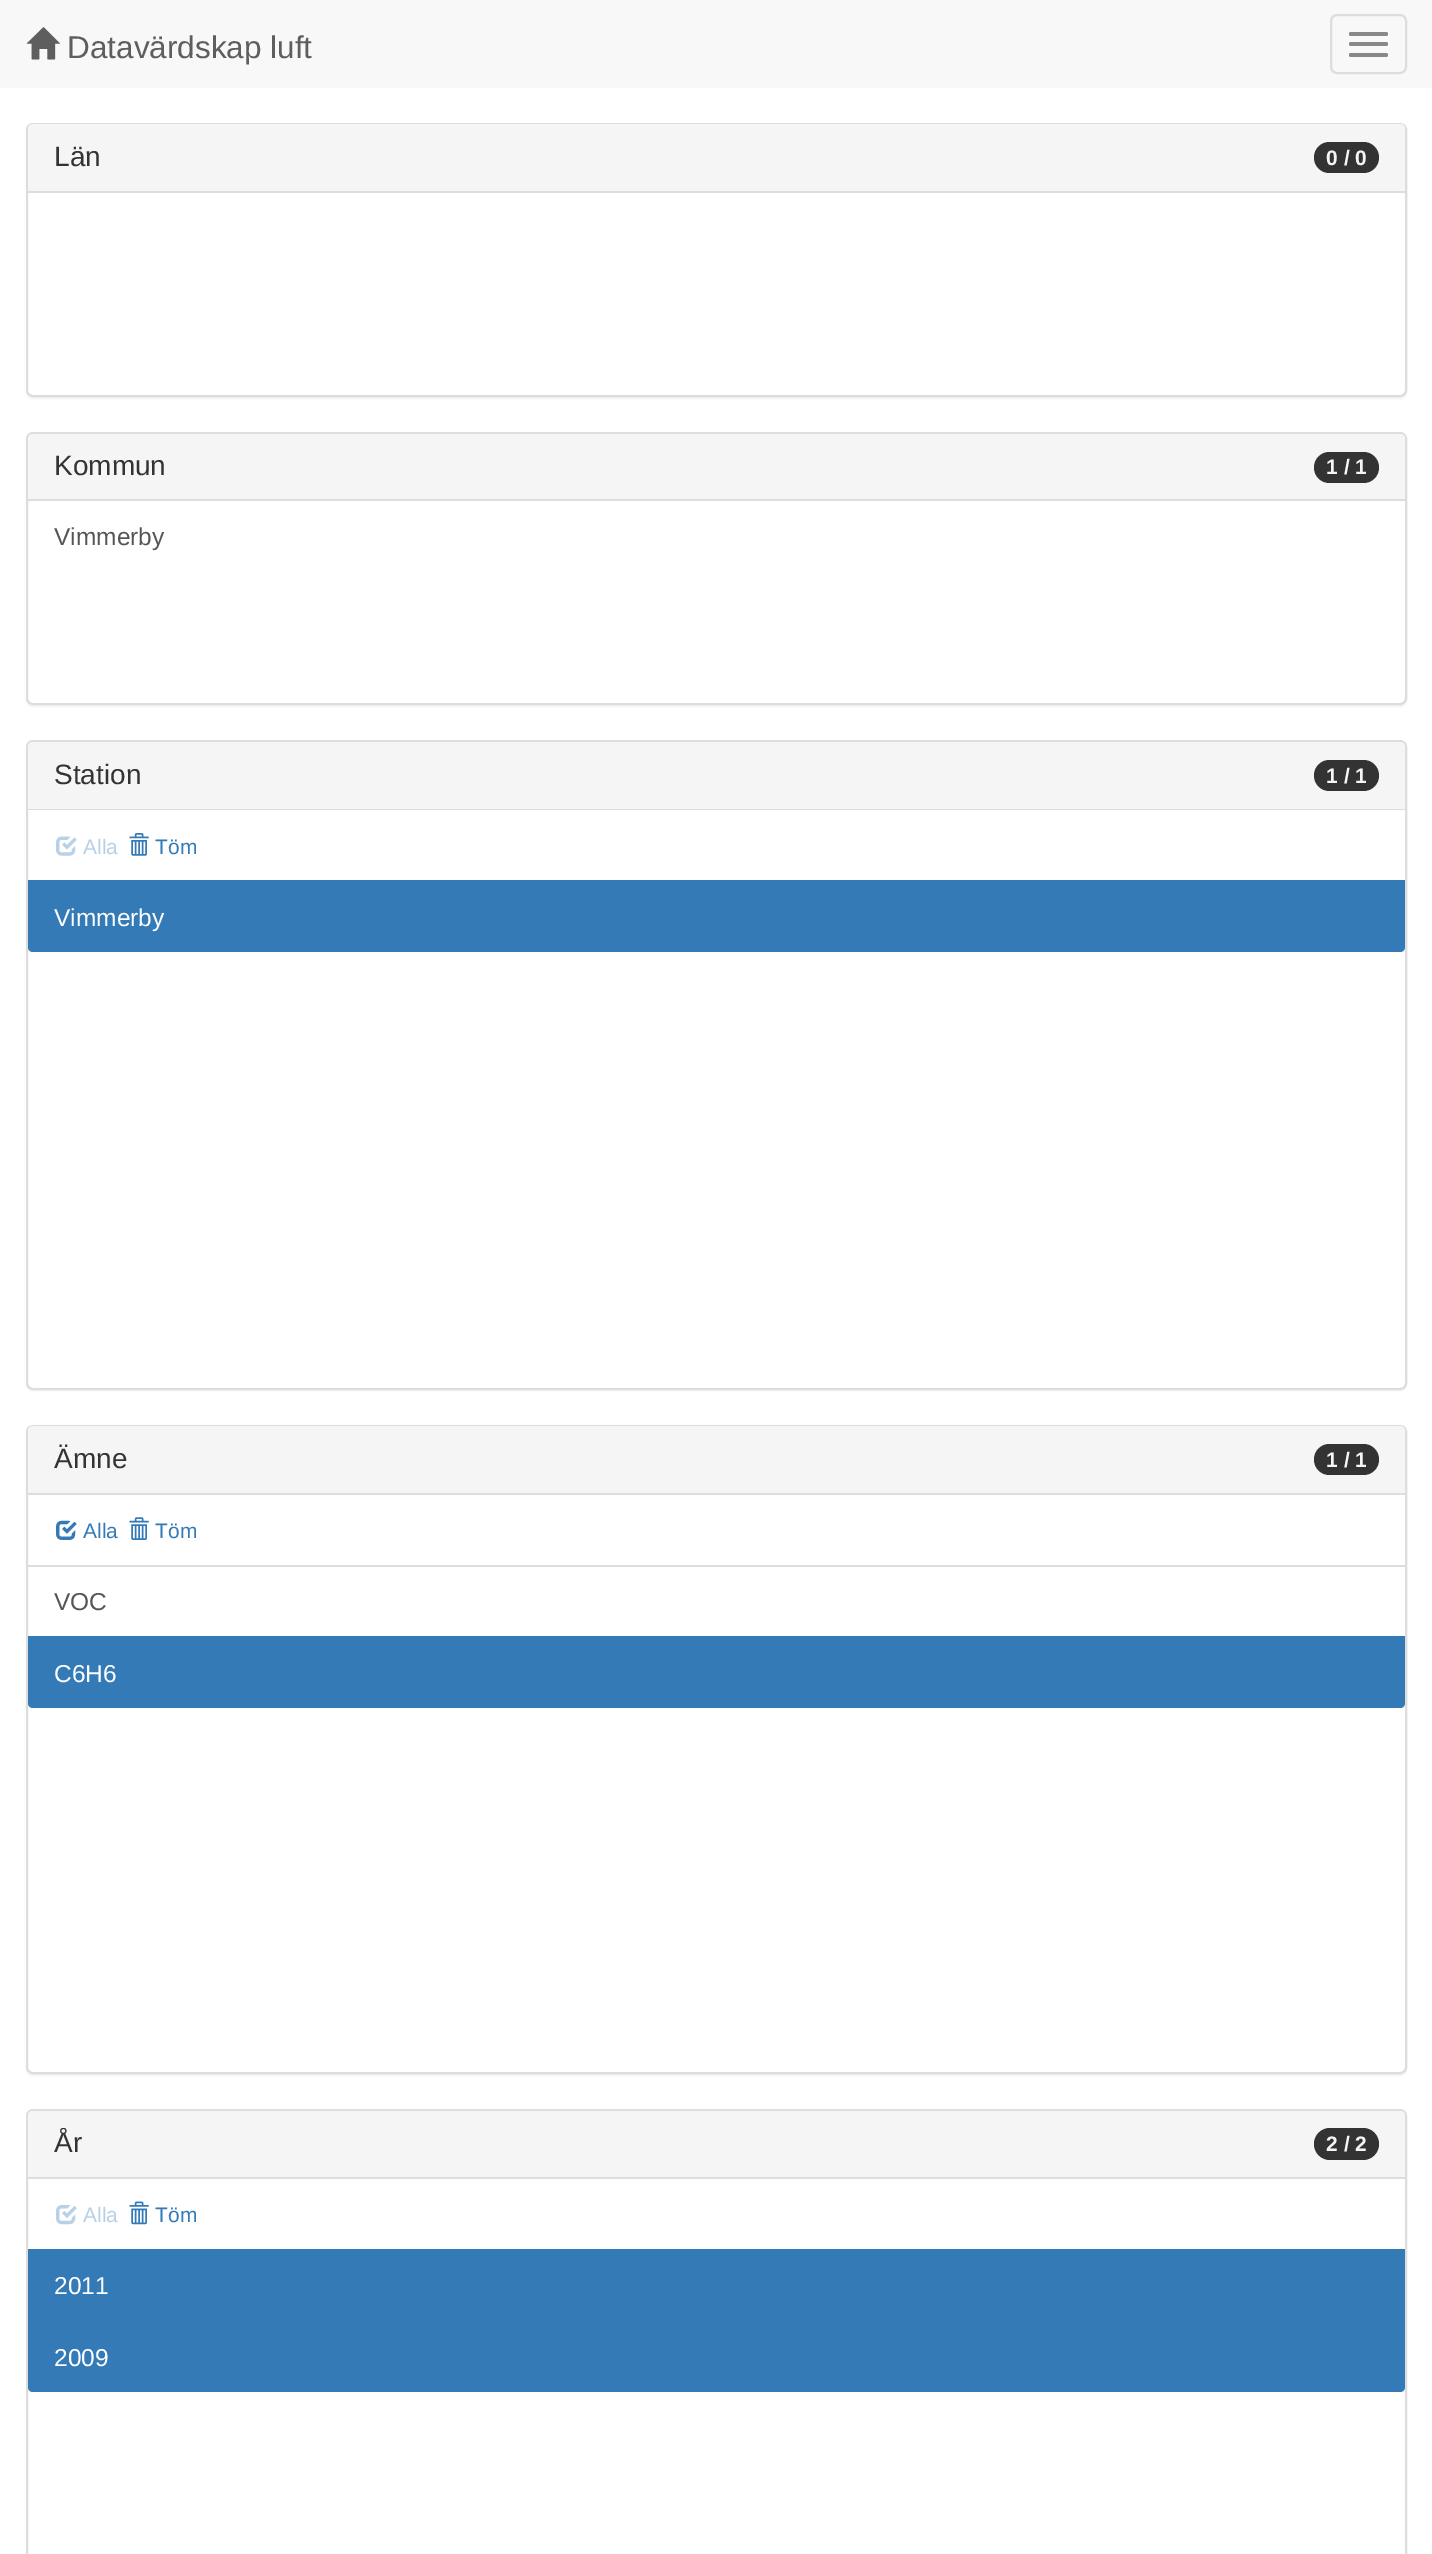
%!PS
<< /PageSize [1432 2554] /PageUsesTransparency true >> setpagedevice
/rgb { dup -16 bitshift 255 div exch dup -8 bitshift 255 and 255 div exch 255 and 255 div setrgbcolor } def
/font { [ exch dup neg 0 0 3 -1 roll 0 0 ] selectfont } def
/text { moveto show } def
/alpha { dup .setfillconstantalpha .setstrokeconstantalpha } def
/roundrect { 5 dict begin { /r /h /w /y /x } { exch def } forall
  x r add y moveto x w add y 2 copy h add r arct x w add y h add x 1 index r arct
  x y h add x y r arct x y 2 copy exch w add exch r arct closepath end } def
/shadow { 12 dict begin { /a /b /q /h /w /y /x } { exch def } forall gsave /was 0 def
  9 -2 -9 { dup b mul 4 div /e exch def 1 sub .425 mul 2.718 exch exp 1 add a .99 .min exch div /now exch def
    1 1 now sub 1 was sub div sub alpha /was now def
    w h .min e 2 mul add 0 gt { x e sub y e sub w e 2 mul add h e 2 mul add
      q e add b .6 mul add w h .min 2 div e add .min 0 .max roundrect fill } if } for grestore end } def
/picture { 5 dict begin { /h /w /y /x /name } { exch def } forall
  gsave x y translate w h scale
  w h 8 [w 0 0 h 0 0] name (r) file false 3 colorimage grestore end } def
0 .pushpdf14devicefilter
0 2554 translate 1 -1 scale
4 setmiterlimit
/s1 { /LiberationSans-Regular 31.5 font 16#5E5E5E rgb } def
/s2 { /LiberationSans-Regular 28 font 16#333333 rgb } def
/s3 { /LiberationSans-Bold 21 font 16#F5F5F5 rgb } def
/s4 { /LiberationSans-Regular 24.5 font 16#555555 rgb } def
/s5 { /LiberationSans-Regular 21 font 16#B8D0E6 rgb } def
/s6 { /LiberationSans-Regular 21 font 16#337AB7 rgb } def
/s7 { /LiberationSans-Regular 24.5 font 16#FFFFFF rgb } def
16#FFFFFF rgb
0 0 1432 2554 rectfill
16#F8F8F8 rgb
0 0 1432 88 rectfill
(pic1.raw) 26 27 34 33 picture
s1
(Datavärdskap luft) 67 58 text
16#DDDDDD rgb
2 setlinewidth
1331 15 75 58 6 roundrect stroke
16#888888 rgb
1349 32 39 4 2 roundrect fill
1349 42 39 4 2 roundrect fill
1349 53 39 4 2 roundrect fill
16#000000 rgb
26 124 1381 275 7 1 0.05 shadow
16#FFFFFF rgb
27 124 1379 272 6 roundrect gsave fill grestore
16#DDDDDD rgb
stroke
16#F5F5F5 rgb
33 124 moveto 1400 124 lineto 1403 124 1405 126 1405 129 curveto 1405 193 lineto 28 193 lineto 28 129 lineto 28 126 30 124 33 124 curveto closepath fill
16#DDDDDD rgb
28 191 1377 2 rectfill
s2
(Län) 54 166 text
1314 142 65 31 15.5 roundrect fill
s3
(0 / 0) 1326 165 text
16#000000 rgb
26 434 1381 273 7 1 0.05 shadow
16#FFFFFF rgb
27 433 1379 271 6 roundrect gsave fill grestore
16#DDDDDD rgb
stroke
16#F5F5F5 rgb
33 434 moveto 1400 434 lineto 1403 434 1405 436 1405 439 curveto 1405 501 lineto 28 501 lineto 28 439 lineto 28 436 30 434 33 434 curveto closepath fill
16#DDDDDD rgb
28 499 1377 2 rectfill
s2
(Kommun) 54 475 text
1314 452 65 31 15.5 roundrect fill
s3
(1 / 1) 1326 474 text
s4
(Vimmerby) 54 545 text
16#000000 rgb
26 742 1381 649 7 1 0.05 shadow
16#FFFFFF rgb
27 741 1379 648 6 roundrect gsave fill grestore
16#DDDDDD rgb
stroke
16#F5F5F5 rgb
33 742 moveto 1400 742 lineto 1403 742 1405 744 1405 747 curveto 1405 810 lineto 28 810 lineto 28 747 lineto 28 744 30 742 33 742 curveto closepath fill
16#DDDDDD rgb
28 809 1377 1 rectfill
s2
(Station) 54 784 text
1314 760 65 31 15.5 roundrect fill
s3
(1 / 1) 1326 783 text
(pic2.raw) 56 836 21 20 picture
s5
(Alla) 83 854 text
(pic3.raw) 129 833 20 23 picture
s6
(Töm) 155 854 text
28 880 moveto 1405 880 lineto 1405 947 lineto 1405 950 1403 952 1400 952 curveto 33 952 lineto 30 952 28 950 28 947 curveto closepath fill
s7
(Vimmerby) 54 926 text
16#000000 rgb
26 1426 1381 650 7 1 0.05 shadow
16#FFFFFF rgb
27 1426 1379 647 6 roundrect gsave fill grestore
16#DDDDDD rgb
stroke
16#F5F5F5 rgb
33 1426 moveto 1400 1426 lineto 1403 1426 1405 1428 1405 1431 curveto 1405 1495 lineto 28 1495 lineto 28 1431 lineto 28 1428 30 1426 33 1426 curveto closepath fill
16#DDDDDD rgb
28 1493 1377 2 rectfill
s2
(Ämne) 54 1468 text
1314 1444 65 31 15.5 roundrect fill
s3
(1 / 1) 1326 1467 text
(pic4.raw) 56 1520 21 20 picture
s6
(Alla) 83 1538 text
(pic5.raw) 129 1517 20 23 picture
(Töm) 155 1538 text
16#DDDDDD rgb
28 1565 1377 2 rectfill
s4
(VOC) 54 1610 text
16#337AB7 rgb
28 1636 moveto 1405 1636 lineto 1405 1703 lineto 1405 1706 1403 1708 1400 1708 curveto 33 1708 lineto 30 1708 28 1706 28 1703 curveto closepath fill
s7
(C6H6) 54 1682 text
16#DDDDDD rgb
27 2110 1379 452 6 roundrect stroke
16#F5F5F5 rgb
33 2111 moveto 1400 2111 lineto 1403 2111 1405 2113 1405 2116 curveto 1405 2179 lineto 28 2179 lineto 28 2116 lineto 28 2113 30 2111 33 2111 curveto closepath fill
16#DDDDDD rgb
28 2177 1377 2 rectfill
gsave
54 2128 1260 32 rectclip
s2
(År) 54 2152 text
grestore
16#333333 rgb
1314 2128 65 32 16 roundrect fill
s3
(2 / 2) 1326 2151 text
(pic6.raw) 56 2205 21 20 picture
s5
(Alla) 83 2222 text
(pic7.raw) 129 2201 20 24 picture
s6
(Töm) 155 2222 text
28 2249 1377 72 rectfill
s7
(2011) 54 2294 text
16#337AB7 rgb
28 2321 moveto 1405 2321 lineto 1405 2387 lineto 1405 2390 1403 2392 1400 2392 curveto 33 2392 lineto 30 2392 28 2390 28 2387 curveto closepath fill
s7
(2009) 54 2366 text
.poppdf14devicefilter showpage
